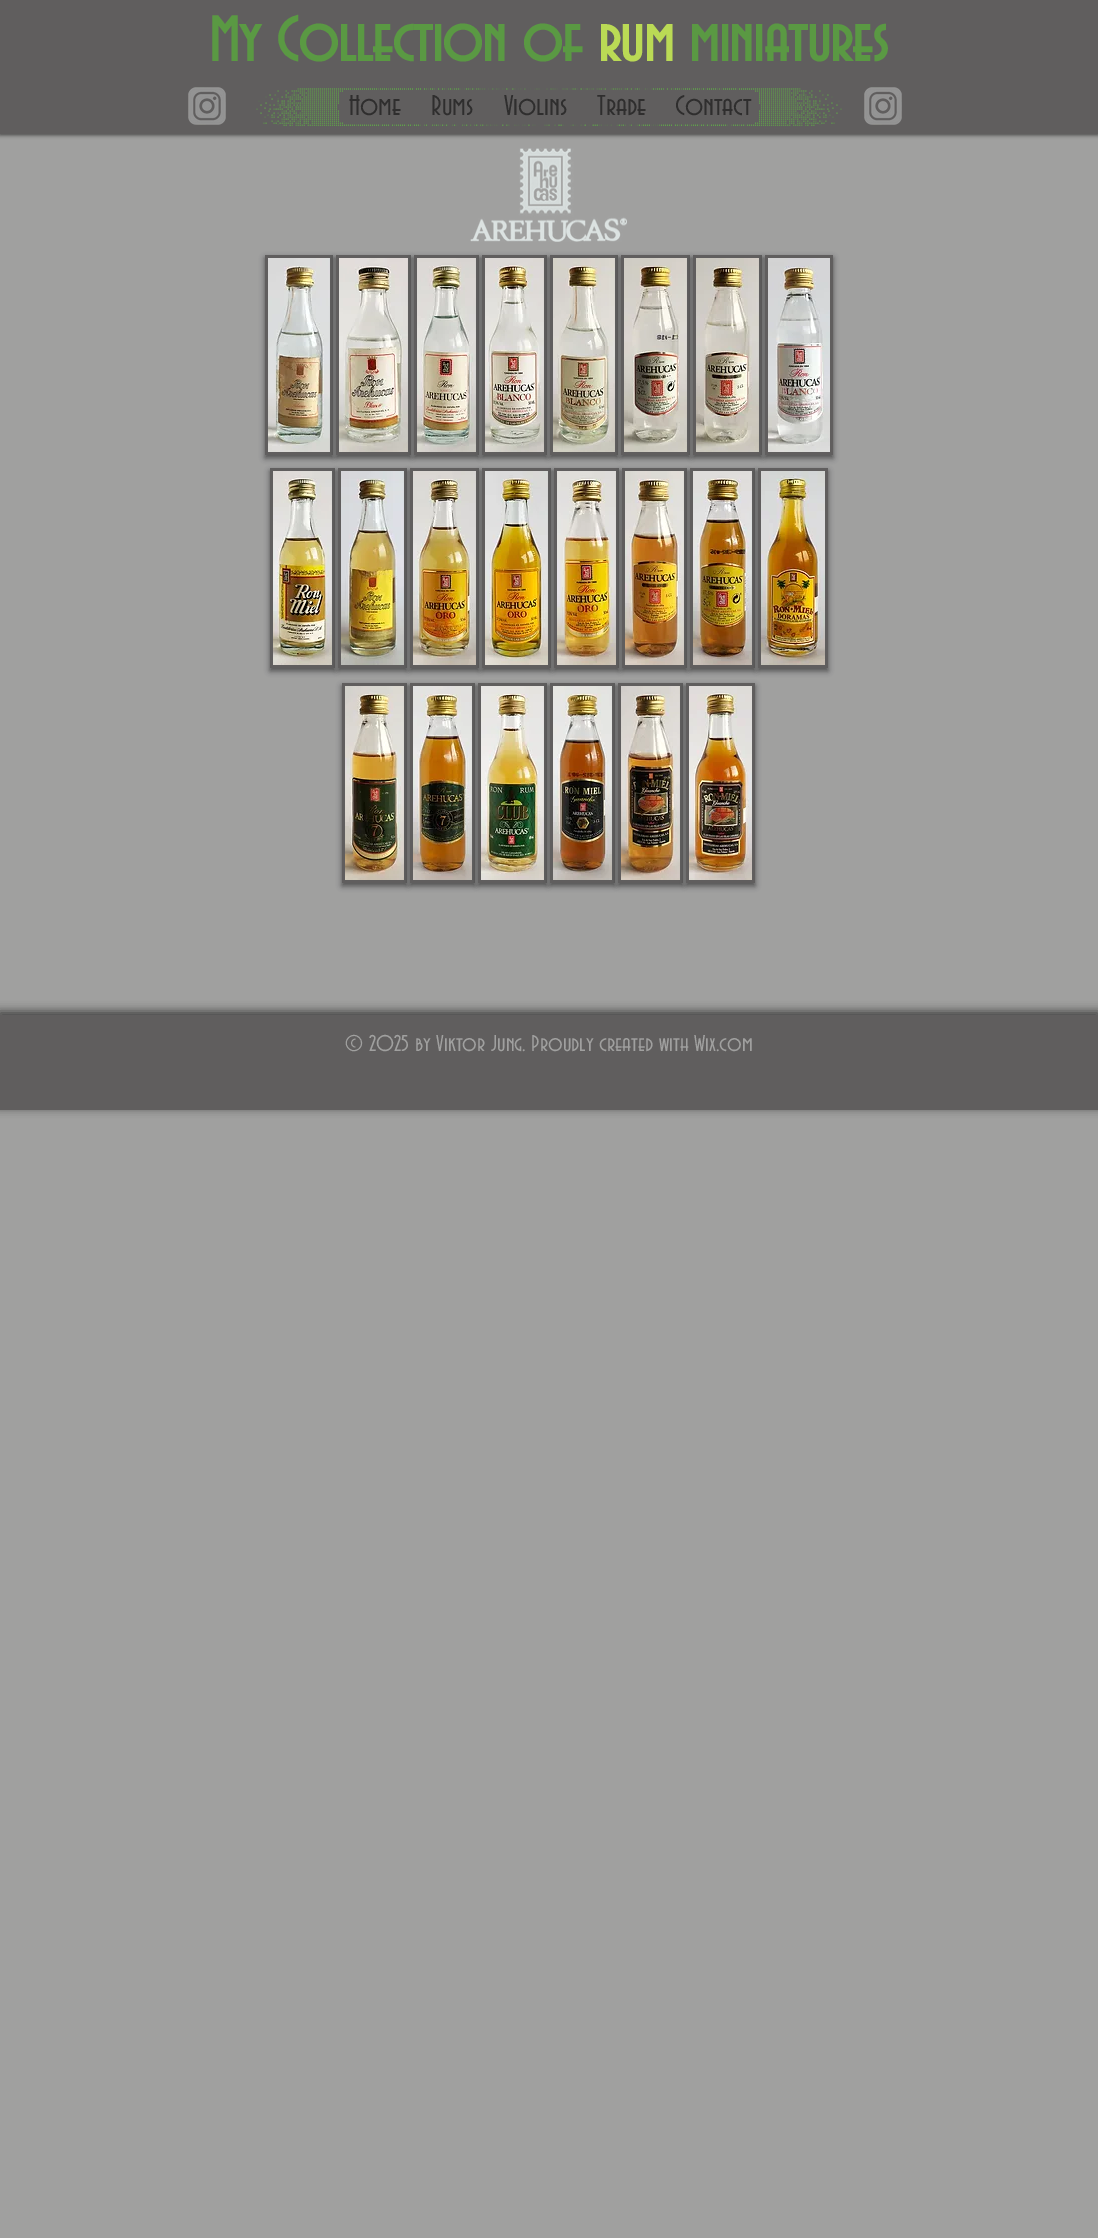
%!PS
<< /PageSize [1098 2238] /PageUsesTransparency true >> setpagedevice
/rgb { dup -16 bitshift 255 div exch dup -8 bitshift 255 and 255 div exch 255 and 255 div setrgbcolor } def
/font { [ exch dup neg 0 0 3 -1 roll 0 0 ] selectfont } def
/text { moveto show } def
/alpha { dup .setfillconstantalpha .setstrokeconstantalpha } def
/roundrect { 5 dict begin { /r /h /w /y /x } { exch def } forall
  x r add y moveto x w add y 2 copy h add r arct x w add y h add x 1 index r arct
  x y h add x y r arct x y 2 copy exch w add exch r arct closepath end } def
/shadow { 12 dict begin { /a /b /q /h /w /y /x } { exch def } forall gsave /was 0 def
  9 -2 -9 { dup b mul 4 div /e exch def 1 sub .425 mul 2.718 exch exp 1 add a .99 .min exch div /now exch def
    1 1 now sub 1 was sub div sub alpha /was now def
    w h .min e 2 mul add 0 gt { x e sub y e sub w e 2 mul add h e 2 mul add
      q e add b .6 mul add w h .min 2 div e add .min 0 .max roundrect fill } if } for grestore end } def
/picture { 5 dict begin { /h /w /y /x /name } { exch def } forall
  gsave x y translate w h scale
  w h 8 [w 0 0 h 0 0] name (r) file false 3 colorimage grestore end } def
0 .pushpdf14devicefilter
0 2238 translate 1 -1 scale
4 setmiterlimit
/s1 { /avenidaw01-Bold 66 font 16#5A9943 rgb } def
/s2 { /avenidaw01-Bold 66 font 16#BADA55 rgb } def
/s3 { /avenidaw01-Regular 30 font 16#2F2E2E rgb } def
/s4 { /avenidaw01-Regular 24 font 16#A0A09F rgb } def
16#A0A09F rgb
0 0 1098 2238 rectfill
16#000000 rgb
0 1 1098 134 0 2 0.6 shadow
16#605E5E rgb
0 0 1098 134 rectfill
s1
(My Collection of) 209 61 text
s2
(rum) 598 61 text
s1
(miniatures) 689 61 text
(pic1.raw) 188 87 38 38 picture
(pic2.raw) 256 88 586 38 picture
(pic1.raw) 864 87 38 38 picture
s3
(Home) 349 115 text
(Rums) 431 115 text
(Violins) 504 115 text
(Trade) 597 115 text
(Contact) 675 115 text
(pic3.raw) 470 148 157 94 picture
16#000000 rgb
265 258 68 200 0 3 0.5 shadow
16#605E5E rgb
265 255 68 200 rectfill
(pic4.raw) 268 258 62 194 picture
16#000000 rgb
336 258 75 200 0 3 0.5 shadow
16#605E5E rgb
336 255 75 200 rectfill
(pic5.raw) 339 258 69 194 picture
16#000000 rgb
414 258 65 200 0 3 0.5 shadow
16#605E5E rgb
414 255 65 200 rectfill
(pic6.raw) 417 258 59 194 picture
16#000000 rgb
482 258 65 200 0 3 0.5 shadow
16#605E5E rgb
482 255 65 200 rectfill
(pic7.raw) 485 258 59 194 picture
16#000000 rgb
550 258 68 200 0 3 0.5 shadow
16#605E5E rgb
550 255 68 200 rectfill
(pic8.raw) 553 258 62 194 picture
16#000000 rgb
621 258 69 200 0 3 0.5 shadow
16#605E5E rgb
621 255 69 200 rectfill
(pic9.raw) 624 258 63 194 picture
16#000000 rgb
693 258 69 200 0 3 0.5 shadow
16#605E5E rgb
693 255 69 200 rectfill
(pic10.raw) 696 258 63 194 picture
16#000000 rgb
765 258 68 200 0 3 0.5 shadow
16#605E5E rgb
765 255 68 200 rectfill
(pic11.raw) 768 258 62 194 picture
16#000000 rgb
270 471 65 200 0 3 0.5 shadow
16#605E5E rgb
270 468 65 200 rectfill
(pic12.raw) 273 471 59 194 picture
16#000000 rgb
338 471 69 200 0 3 0.5 shadow
16#605E5E rgb
338 468 69 200 rectfill
(pic13.raw) 341 471 63 194 picture
16#000000 rgb
410 471 69 200 0 3 0.5 shadow
16#605E5E rgb
410 468 69 200 rectfill
(pic14.raw) 413 471 63 194 picture
16#000000 rgb
482 471 69 200 0 3 0.5 shadow
16#605E5E rgb
482 468 69 200 rectfill
(pic15.raw) 485 471 63 194 picture
16#000000 rgb
554 471 65 200 0 3 0.5 shadow
16#605E5E rgb
554 468 65 200 rectfill
(pic16.raw) 557 471 59 194 picture
16#000000 rgb
622 471 65 200 0 3 0.5 shadow
16#605E5E rgb
622 468 65 200 rectfill
(pic17.raw) 625 471 59 194 picture
16#000000 rgb
690 471 65 200 0 3 0.5 shadow
16#605E5E rgb
690 468 65 200 rectfill
(pic18.raw) 693 471 59 194 picture
16#000000 rgb
758 471 70 200 0 3 0.5 shadow
16#605E5E rgb
758 468 70 200 rectfill
(pic19.raw) 761 471 64 194 picture
16#000000 rgb
342 686 65 200 0 3 0.5 shadow
16#605E5E rgb
342 683 65 200 rectfill
(pic20.raw) 345 686 59 194 picture
16#000000 rgb
410 686 65 200 0 3 0.5 shadow
16#605E5E rgb
410 683 65 200 rectfill
(pic21.raw) 413 686 59 194 picture
16#000000 rgb
478 686 69 200 0 3 0.5 shadow
16#605E5E rgb
478 683 69 200 rectfill
(pic22.raw) 481 686 63 194 picture
16#000000 rgb
550 686 65 200 0 3 0.5 shadow
16#605E5E rgb
550 683 65 200 rectfill
(pic23.raw) 553 686 59 194 picture
16#000000 rgb
618 686 65 200 0 3 0.5 shadow
16#605E5E rgb
618 683 65 200 rectfill
(pic24.raw) 621 686 59 194 picture
16#000000 rgb
686 686 69 200 0 3 0.5 shadow
16#605E5E rgb
686 683 69 200 rectfill
(pic25.raw) 689 686 63 194 picture
16#000000 rgb
-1 1011 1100 97 0 4.5 0.56 shadow
16#605E5E rgb
0 1015 1098 95 rectfill
s4
(© 2025 by Viktor Jung. Proudly created with Wix.com) 345 1051 text
.poppdf14devicefilter showpage
